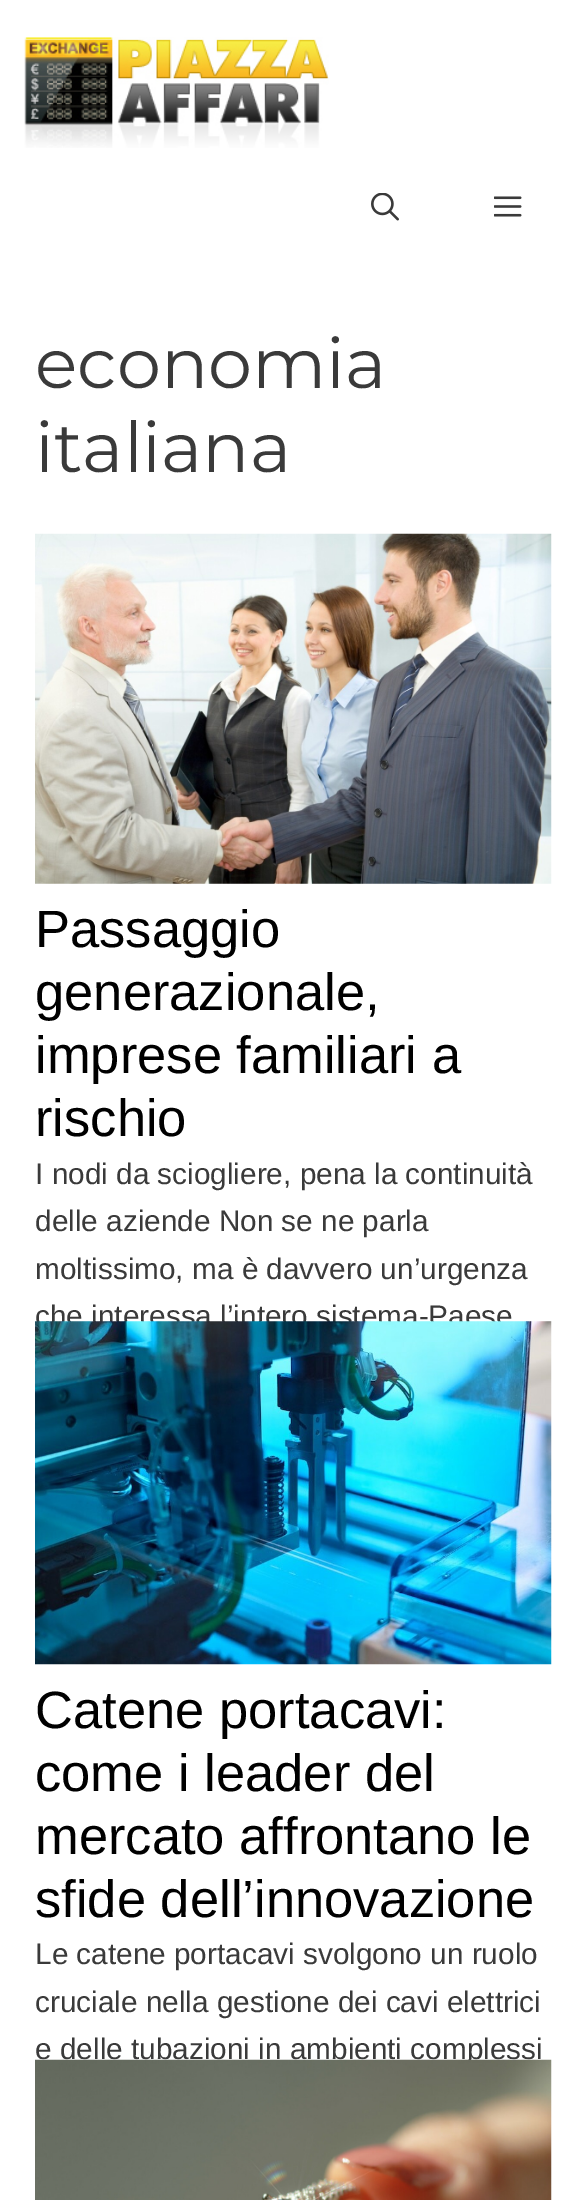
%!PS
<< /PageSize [585 2200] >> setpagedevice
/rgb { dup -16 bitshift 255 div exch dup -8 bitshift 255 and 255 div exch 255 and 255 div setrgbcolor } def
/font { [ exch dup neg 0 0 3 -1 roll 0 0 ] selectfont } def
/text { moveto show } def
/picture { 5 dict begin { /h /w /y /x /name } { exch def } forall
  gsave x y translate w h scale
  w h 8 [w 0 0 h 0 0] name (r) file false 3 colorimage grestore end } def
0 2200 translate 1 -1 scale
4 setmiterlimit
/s1 { /Montserrat-Regular 70 font 16#3A3A3A rgb } def
/s2 { /LiberationSans-Regular 52.5 font 16#000000 rgb } def
/s3 { /LiberationSans-Regular 29.75 font 16#3A3A3A rgb } def
16#FFFFFF rgb
0 0 585 2200 rectfill
(pic1.raw) 24 37 305 111 picture
(pic2.raw) 371 193 28 28 picture
(pic3.raw) 494 196 28 21 picture
s1
(economia) 35 388 text
(italiana) 35 472 text
(pic4.raw) 35 533 517 351 picture
s2
(Passaggio) 35 947 text
(generazionale,) 35 1010 text
(imprese familiari a) 35 1073 text
(rischio) 35 1136 text
s3
(I nodi da sciogliere, pena la continuità) 35 1184 text
(delle aziende Non se ne parla) 35 1231 text
(moltissimo, ma è davvero un’urgenza) 35 1279 text
(che interessa l’intero sistema-Paese) 35 1326 text
(pic5.raw) 35 1321 517 344 picture
s2
(Catene portacavi:) 35 1728 text
(come i leader del) 35 1791 text
(mercato affrontano le) 35 1854 text
(sfide dell’innovazione) 35 1917 text
s3
(Le catene portacavi svolgono un ruolo) 35 1964 text
(cruciale nella gestione dei cavi elettrici) 35 2012 text
(e delle tubazioni in ambienti complessi) 35 2059 text
(pic6.raw) 35 2059 517 141 picture
showpage
